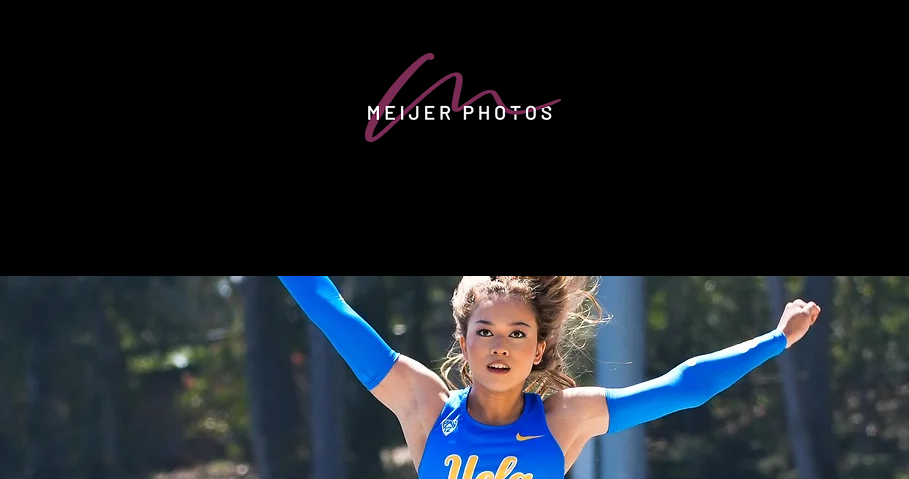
%!PS
<< /PageSize [909 479] >> setpagedevice
/rgb { dup -16 bitshift 255 div exch dup -8 bitshift 255 and 255 div exch 255 and 255 div setrgbcolor } def
/picture { 5 dict begin { /h /w /y /x /name } { exch def } forall
  gsave x y translate w h scale
  w h 8 [w 0 0 h 0 0] name (r) file false 3 colorimage grestore end } def
0 479 translate 1 -1 scale
4 setmiterlimit
16#000000 rgb
0 0 909 479 rectfill
(pic1.raw) 365 53 196 89 picture
(pic2.raw) 0 276 909 203 picture
showpage
